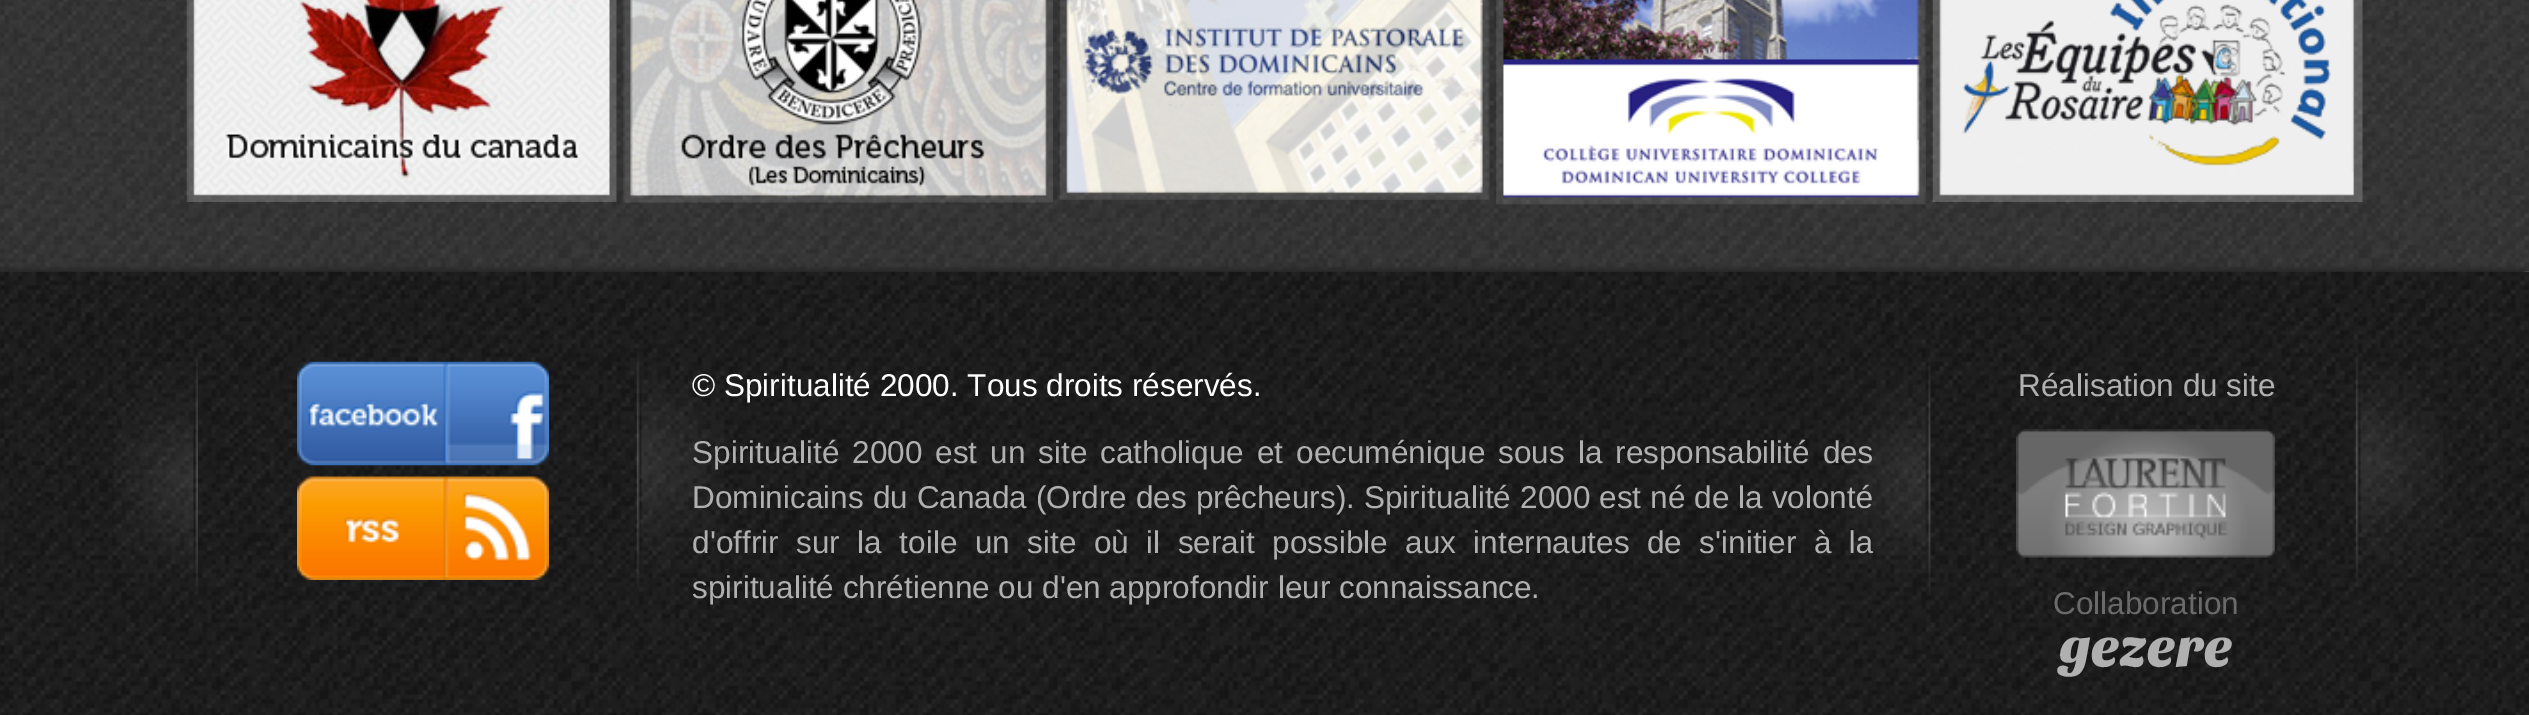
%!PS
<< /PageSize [2529 715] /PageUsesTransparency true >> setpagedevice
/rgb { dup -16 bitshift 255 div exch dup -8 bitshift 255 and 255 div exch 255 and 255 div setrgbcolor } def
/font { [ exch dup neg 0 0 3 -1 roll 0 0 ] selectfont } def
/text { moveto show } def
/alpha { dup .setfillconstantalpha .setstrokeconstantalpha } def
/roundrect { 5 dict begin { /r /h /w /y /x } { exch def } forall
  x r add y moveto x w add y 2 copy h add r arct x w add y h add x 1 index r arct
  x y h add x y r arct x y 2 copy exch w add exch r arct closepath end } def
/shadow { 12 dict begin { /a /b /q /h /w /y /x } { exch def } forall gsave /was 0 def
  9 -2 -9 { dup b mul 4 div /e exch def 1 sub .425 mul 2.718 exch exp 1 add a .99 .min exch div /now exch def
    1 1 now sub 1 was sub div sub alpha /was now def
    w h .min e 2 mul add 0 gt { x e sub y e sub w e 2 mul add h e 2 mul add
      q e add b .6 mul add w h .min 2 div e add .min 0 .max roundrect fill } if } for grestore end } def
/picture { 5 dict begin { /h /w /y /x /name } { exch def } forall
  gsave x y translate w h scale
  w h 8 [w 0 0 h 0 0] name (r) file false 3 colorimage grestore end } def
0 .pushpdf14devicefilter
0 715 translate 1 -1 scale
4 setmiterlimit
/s1 { /LiberationSans-Regular 31.5 font 16#FFFFFF rgb } def
/s2 { /LiberationSans-Regular 31.5 font 16#B0B0B0 rgb } def
/s3 { /LiberationSans-Regular 31.5 font 16#6A6A6A rgb } def
/s4 { /SansitaOne-Regular 54 font 16#B0B0B0 rgb } def
16#FFFFFF rgb
0 0 2529 715 rectfill
(pic1.raw) 0 271 2529 1 picture
(pic2.raw) 0 0 2529 272 picture
(pic3.raw) 186 0 431 202 picture
(pic4.raw) 623 0 430 203 picture
(pic5.raw) 1059 0 431 200 picture
(pic6.raw) 1496 0 430 205 picture
(pic7.raw) 1932 0 431 202 picture
16#292929 rgb
-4 268 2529 443 0 2 1 shadow
(pic8.raw) 0 271 2529 444 picture
(pic9.raw) 114 356 84 239 picture
(pic10.raw) 297 361 252 105 picture
(pic11.raw) 636 349 88 239 picture
(pic12.raw) 297 476 252 104 picture
s1
(© Spiritualité 2000. Tous droits réservés.) 692 396 text
16#B0B0B0 rgb
692 463 moveto 4.25 0 32 (Spiritualité 2000 est un site catholique et oecuménique sous la responsabilité des) widthshow
692 508 moveto 0.25 0 32 (Dominicains du Canada \(Ordre des prêcheurs\). Spiritualité 2000 est né de la volonté) widthshow
692 553 moveto 8.75 0 32 (d'offrir sur la toile un site où il serait possible aux internautes de s'initier à la) widthshow
(spiritualité chrétienne ou d'en approfondir leur connaissance.) 692 598 text
(pic13.raw) 1846 356 85 239 picture
(Réalisation du site) 2018 396 text
(pic14.raw) 2355 349 88 239 picture
(pic15.raw) 2016 429 259 129 picture
s3
(Collaboration) 2053 614 text
s4
(gezere) 2059 666 text
.poppdf14devicefilter showpage
